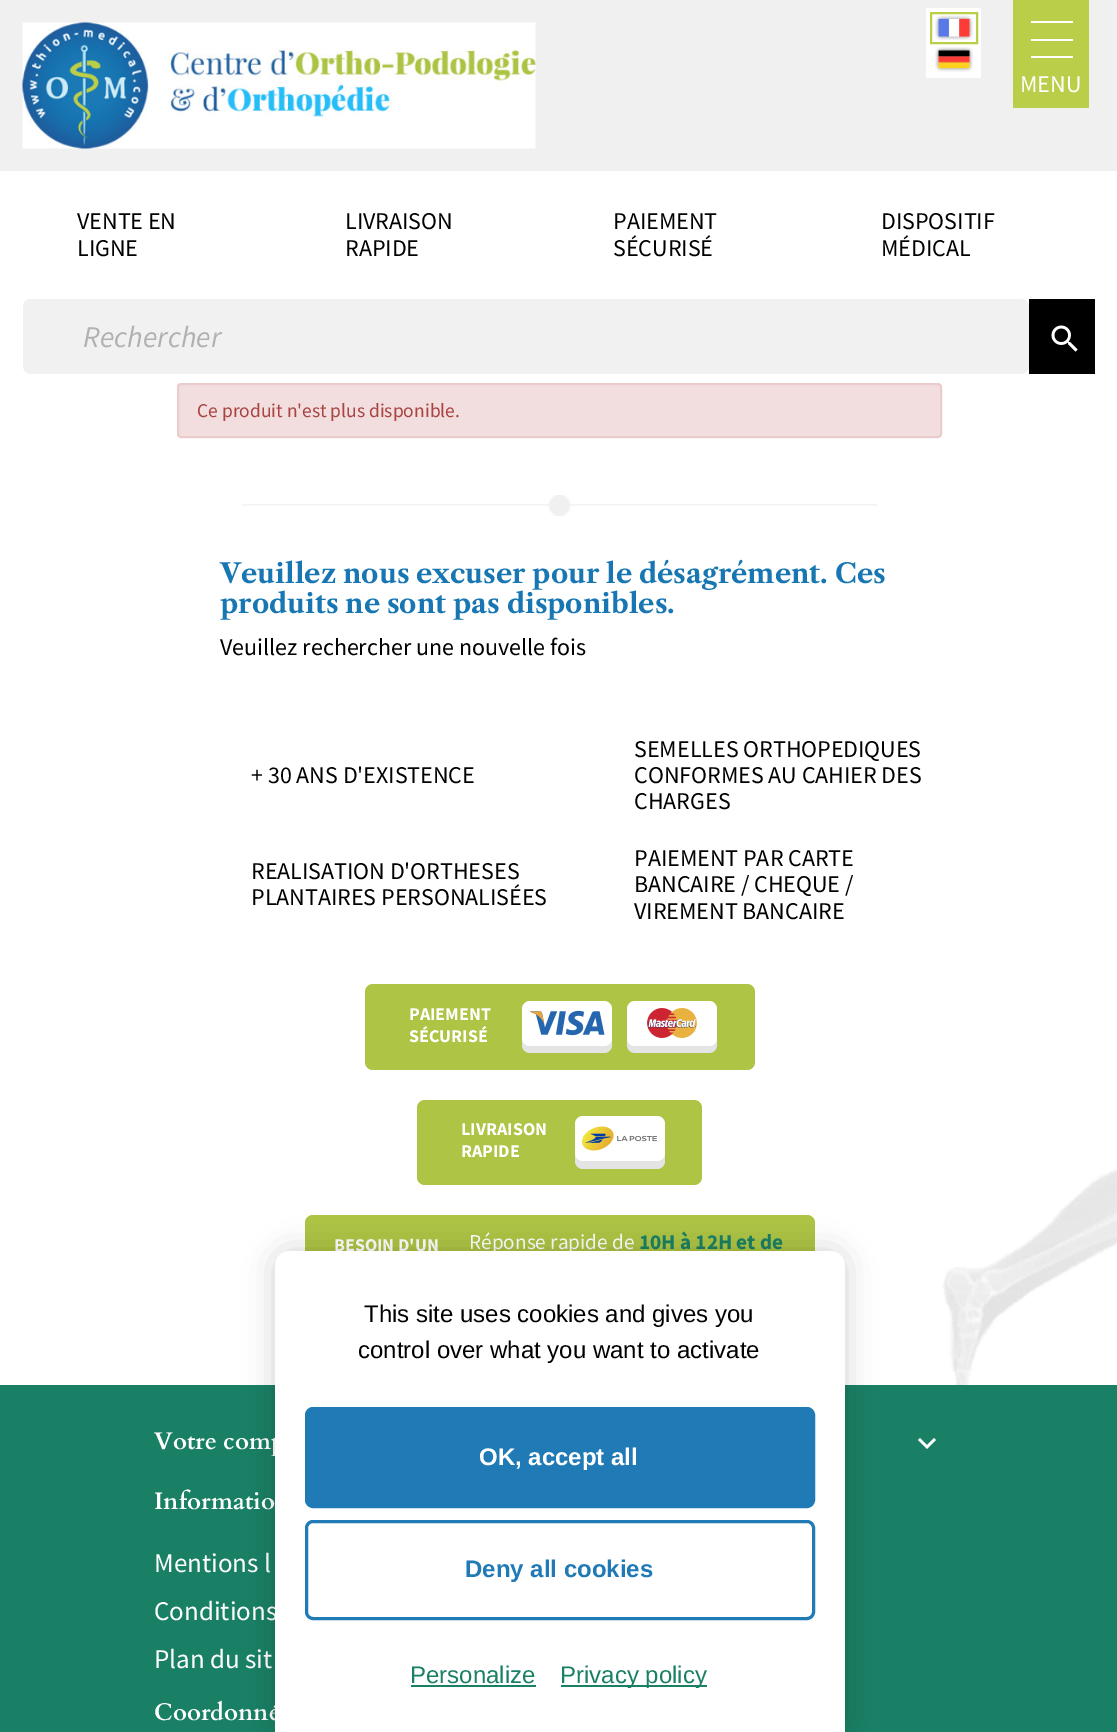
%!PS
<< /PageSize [1117 1732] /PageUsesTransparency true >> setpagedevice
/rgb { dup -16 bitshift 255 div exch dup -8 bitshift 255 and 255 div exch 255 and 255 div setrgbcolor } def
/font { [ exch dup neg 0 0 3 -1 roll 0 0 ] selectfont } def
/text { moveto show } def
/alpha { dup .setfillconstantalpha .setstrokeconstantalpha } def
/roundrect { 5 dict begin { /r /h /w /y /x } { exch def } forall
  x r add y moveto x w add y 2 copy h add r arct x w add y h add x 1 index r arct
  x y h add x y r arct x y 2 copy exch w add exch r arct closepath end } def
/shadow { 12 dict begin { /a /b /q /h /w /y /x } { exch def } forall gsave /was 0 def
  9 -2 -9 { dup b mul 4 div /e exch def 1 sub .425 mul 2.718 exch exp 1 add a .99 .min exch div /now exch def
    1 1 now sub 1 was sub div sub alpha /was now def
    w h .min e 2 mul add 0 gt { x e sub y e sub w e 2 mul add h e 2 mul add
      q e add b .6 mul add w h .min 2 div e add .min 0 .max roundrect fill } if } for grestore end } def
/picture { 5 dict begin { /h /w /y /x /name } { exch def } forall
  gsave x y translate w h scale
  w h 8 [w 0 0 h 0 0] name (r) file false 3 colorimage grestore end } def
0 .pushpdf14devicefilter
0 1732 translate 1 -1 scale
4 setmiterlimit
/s1 { /SourceSansPro-Regular 24 font 16#FFFFFF rgb } def
/s2 { /SourceSansPro-Regular 24 font 16#000000 rgb } def
/s3 { /SourceSansPro-Italic 30 font 16#B1B1B1 rgb } def
/s4 { /SourceSansPro-Regular 19.5 font 16#A94442 rgb } def
/s5 { /LibreCaslonText-Bold 27 font 16#1877B3 rgb } def
/s6 { /SourceSansPro-Bold 18 font 16#FFFFFF rgb } def
/s7 { /SourceSansPro-Regular 21.25 font 16#FFFFFF rgb } def
/s8 { /SourceSansPro-Bold 21.25 font 16#198065 rgb } def
/s9 { /Cardo-Bold 24 font 16#FFFFFF rgb } def
/s10 { /SourceSansPro-Regular 27 font 16#FFFFFF rgb } def
/s11 { /LiberationSans-Regular 24 font 16#000000 rgb } def
/s12 { /LiberationSans-Bold 24 font 16#FFFFFF rgb } def
/s13 { /LiberationSans-Bold 24 font 16#207AB5 rgb } def
/s14 { /LiberationSans-Regular 24 font 16#198065 rgb } def
16#FFFFFF rgb
0 0 1117 1732 rectfill
16#F0F0F0 rgb
0 0 1117 171 rectfill
(pic1.raw) 22 22 514 127 picture
16#FFFFFF rgb
926 8 55 70 rectfill
(pic2.raw) 935 15 38 25 picture
16#BBCE49 rgb
2 setlinewidth
931 13 46 30 rectstroke
(pic3.raw) 935 47 38 25 picture
1013 0 76 108 rectfill
16#FFFFFF rgb
1031 21 42 2 rectfill
1031 39 42 2 rectfill
1031 56 42 2 rectfill
s1
(MENU) 1020 92 text
s2
(VENTE EN) 77 229 text
(LIGNE) 77 256 text
(LIVRAISON) 345 229 text
(RAPIDE) 345 256 text
(PAIEMENT) 613 229 text
(SÉCURISÉ) 613 256 text
(DISPOSITIF) 881 229 text
(MÉDICAL) 881 256 text
16#F1F1F1 rgb
23 299 1006 75 8 roundrect fill
s3
(Rechercher) 83 347 text
16#000000 rgb
1029 299 66 75 rectfill
(pic4.raw) 1051 325 27 27 picture
16#F2DEDE rgb
178 384 763 53 3 roundrect gsave fill grestore
16#EBCCCC rgb
stroke
s4
(Ce produit n'est plus disponible.) 197 417 text
(pic5.raw) 241 495 637 21 picture
s5
(Veuillez nous excuser pour le désagrément. Ces) 220 583 text
(produits ne sont pas disponibles.) 220 613 text
s2
(Veuillez rechercher une nouvelle fois) 220 655 text
(pic6.raw) 942 1169 175 216 picture
(+ 30 ANS D'EXISTENCE) 251 783 text
(SEMELLES ORTHOPEDIQUES) 634 757 text
(CONFORMES AU CAHIER DES) 634 783 text
(CHARGES) 634 809 text
(REALISATION D'ORTHESES) 251 879 text
(PLANTAIRES PERSONALISÉES) 251 905 text
(PAIEMENT PAR CARTE) 634 866 text
(BANCAIRE / CHEQUE /) 634 892 text
(VIREMENT BANCAIRE) 634 919 text
16#ADC444 rgb
365 984 390 86 8 roundrect fill
s6
(PAIEMENT) 409 1020 text
(SÉCURISÉ) 409 1042 text
16#E4E4E4 rgb
522 1031 90 22 8 roundrect fill
16#FFFFFF rgb
522 1001 90 45 8 roundrect fill
(pic7.raw) 530 1010 75 26 picture
16#E4E4E4 rgb
627 1031 90 22 8 roundrect fill
16#FFFFFF rgb
627 1001 90 45 8 roundrect fill
(pic8.raw) 647 1008 50 30 picture
16#ADC444 rgb
417 1100 285 85 8 roundrect fill
s6
(LIVRAISON) 461 1135 text
(RAPIDE) 461 1157 text
16#E4E4E4 rgb
575 1146 90 23 8 roundrect fill
16#FFFFFF rgb
575 1116 90 45 8 roundrect fill
(pic9.raw) 582 1126 75 25 picture
16#ADC444 rgb
305 1215 510 80 8 roundrect fill
s6
(BESOIN D'UN) 334 1251 text
s7
(Réponse rapide de) 469 1249 text
s8
(10H à 12H et de) 639 1249 text
0 1385 1117 347 rectfill
s9
(Votre comp) 154 1449 text
920 1438 moveto 927 1445 lineto 934 1438 lineto 936 1440 lineto 927 1449 lineto 918 1440 lineto closepath fill
(Informatio) 154 1509 text
s10
(Mentions l) 154 1572 text
(Conditions) 154 1620 text
(Plan du sit) 154 1668 text
s9
(Coordonné) 154 1720 text
16#000000 rgb
275 1251 570 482 15 15 0.18 shadow
16#FFFFFF rgb
290 1251 moveto 830 1251 lineto 838.5 1251 845 1257.5 845 1266 curveto 845 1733 lineto 275 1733 lineto 275 1266 lineto 275 1257.5 281.5 1251 290 1251 curveto closepath fill
s11
(This site uses cookies and gives you) 364 1322 text
(control over what you want to activate) 358 1358 text
16#207AB5 rgb
306.5 1408.5 507 98 6.5 roundrect gsave fill grestore
3 setlinewidth
stroke
s12
(OK, accept all) 479 1465 text
16#207AB5 rgb
306.5 1521.5 507 97 6.5 roundrect stroke
(Deny all cookies) 465 1577 text
s14
(Personalize) 410 1683 text
411 1685 125 2 rectfill
561 1685 146 2 rectfill
(Privacy policy) 560 1683 text
.poppdf14devicefilter showpage
